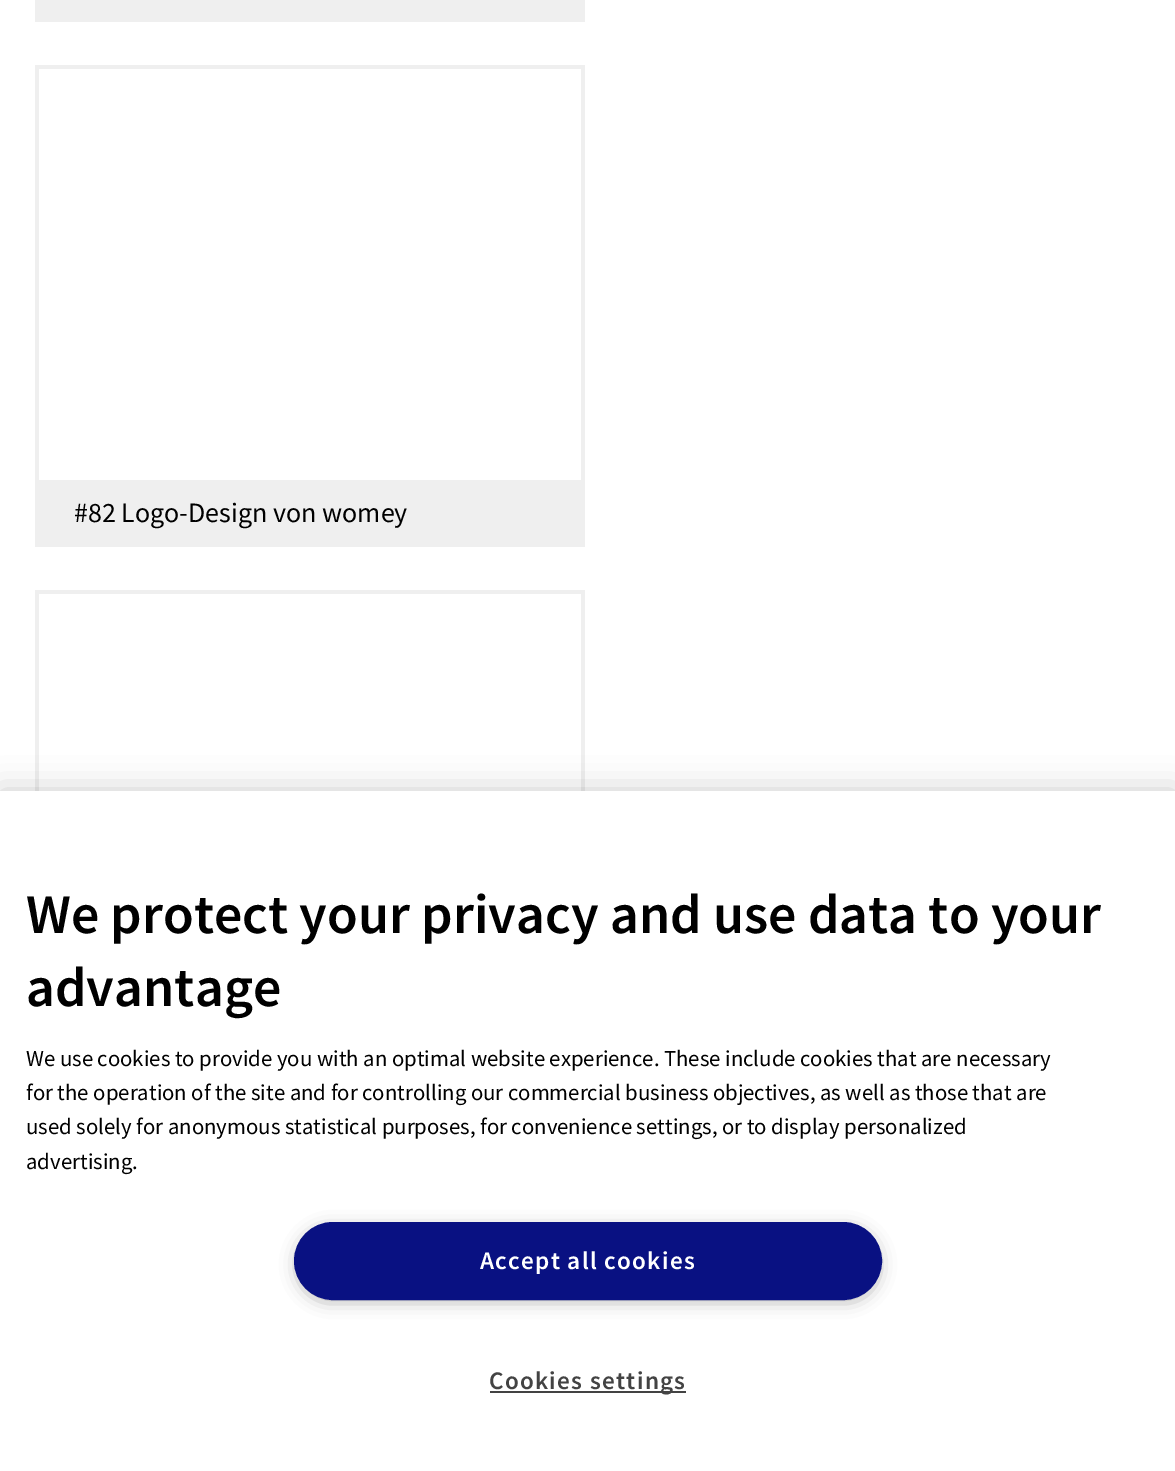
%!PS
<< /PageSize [1175 1471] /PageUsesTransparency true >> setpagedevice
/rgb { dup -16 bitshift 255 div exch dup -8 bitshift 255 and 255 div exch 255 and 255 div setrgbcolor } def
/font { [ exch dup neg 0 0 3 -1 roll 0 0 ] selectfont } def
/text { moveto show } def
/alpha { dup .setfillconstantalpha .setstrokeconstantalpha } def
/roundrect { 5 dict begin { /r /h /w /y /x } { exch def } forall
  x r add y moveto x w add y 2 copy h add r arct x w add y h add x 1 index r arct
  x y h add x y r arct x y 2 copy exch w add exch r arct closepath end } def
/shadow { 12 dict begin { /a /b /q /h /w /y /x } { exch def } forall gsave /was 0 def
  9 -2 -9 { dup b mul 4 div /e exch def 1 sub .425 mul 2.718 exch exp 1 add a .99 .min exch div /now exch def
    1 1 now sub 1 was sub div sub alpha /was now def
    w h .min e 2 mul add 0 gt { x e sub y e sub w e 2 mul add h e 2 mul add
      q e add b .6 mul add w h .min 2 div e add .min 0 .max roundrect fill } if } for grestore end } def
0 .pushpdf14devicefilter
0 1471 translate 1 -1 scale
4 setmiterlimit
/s1 { /SourceSansPro-Regular 28 font 16#000000 rgb } def
/s2 { /SourceSansPro-SemiBold 56 font 16#000000 rgb } def
/s3 { /SourceSansPro-Regular 22.75 font 16#000000 rgb } def
16#FFFFFF rgb
0 0 1175 1471 rectfill
16#EFEFEF rgb
35 0 550 22 rectfill
35 65 550 4 rectfill
581 65 4 415 rectfill
35 65 4 415 rectfill
35 480 550 67 rectfill
s1
(#82 Logo-Design von womey) 74 522 text
16#EFEFEF rgb
35 590 550 4 rectfill
581 590 4 201 rectfill
35 590 4 201 rectfill
16#000000 rgb
0 791 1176 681 0 16 0.2 shadow
16#FFFFFF rgb
0 791 1175 680 rectfill
s2
(We protect your privacy and use data to your) 26 933 text
(advantage) 26 1006 text
s3
(We use cookies to provide you with an optimal website experience. These include cookies that are necessary) 26 1066 text
(for the operation of the site and for controlling our commercial business objectives, as well as those that are) 26 1100 text
(used solely for anonymous statistical purposes, for convenience settings, or to display personalized) 26 1134 text
(advertising.) 26 1169 text
16#999999 rgb
299 1230 578 69 34.5 9 1 shadow
16#091182 rgb
295 1223 586 76 38 roundrect gsave fill grestore
2 setlinewidth
stroke
/SourceSansPro-SemiBold 25.25 font
16#FFFFFF rgb
480 1269 moveto 1.25 0 (Accept all cookies) ashow
16#434343 rgb
490 1391 196 2 rectfill
489 1389 moveto 1.25 0 (Cookies settings) ashow
.poppdf14devicefilter showpage
